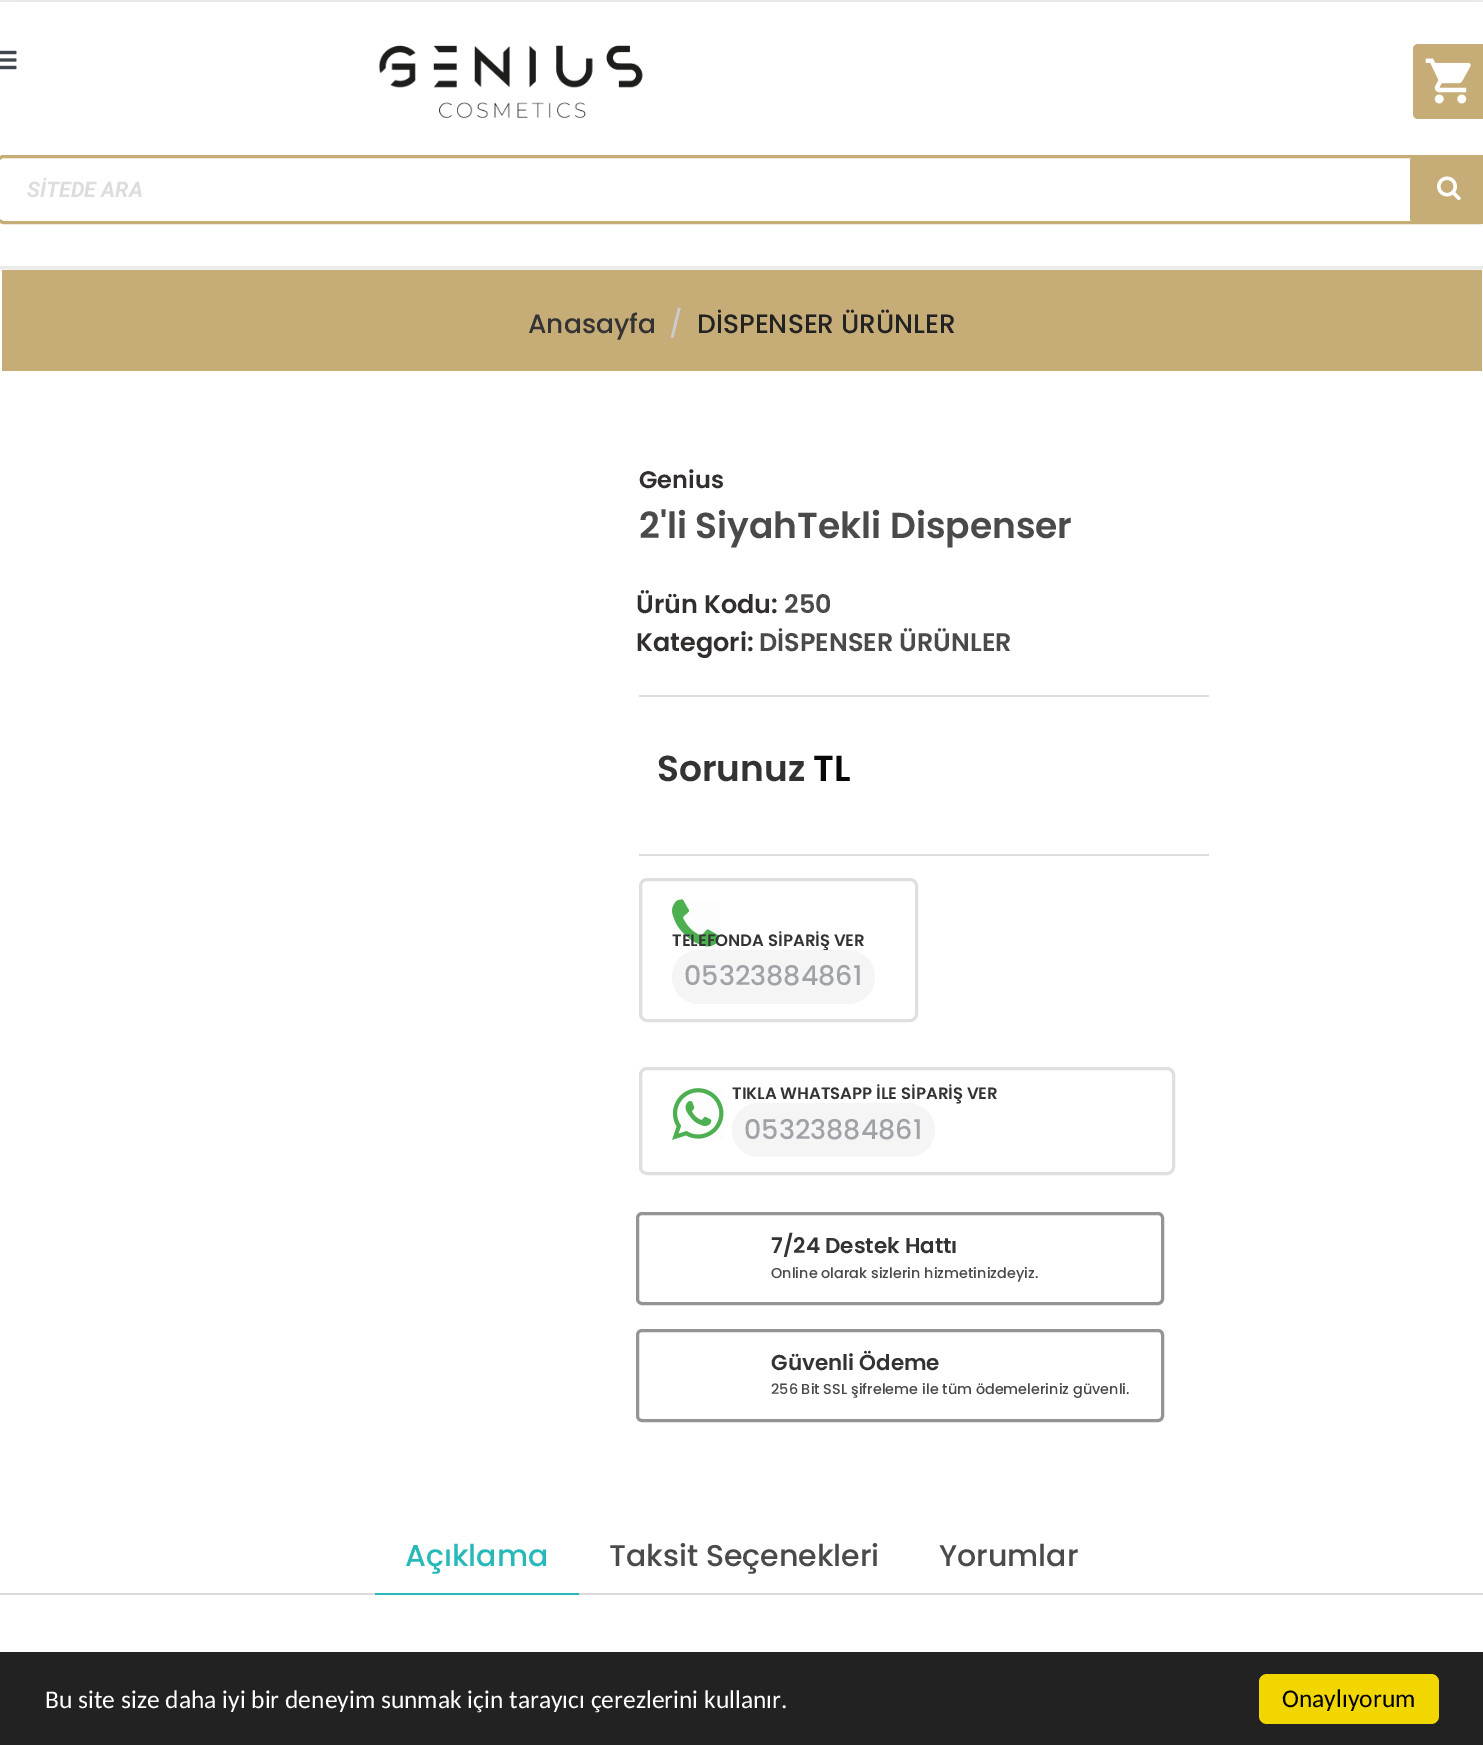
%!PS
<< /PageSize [1483 1745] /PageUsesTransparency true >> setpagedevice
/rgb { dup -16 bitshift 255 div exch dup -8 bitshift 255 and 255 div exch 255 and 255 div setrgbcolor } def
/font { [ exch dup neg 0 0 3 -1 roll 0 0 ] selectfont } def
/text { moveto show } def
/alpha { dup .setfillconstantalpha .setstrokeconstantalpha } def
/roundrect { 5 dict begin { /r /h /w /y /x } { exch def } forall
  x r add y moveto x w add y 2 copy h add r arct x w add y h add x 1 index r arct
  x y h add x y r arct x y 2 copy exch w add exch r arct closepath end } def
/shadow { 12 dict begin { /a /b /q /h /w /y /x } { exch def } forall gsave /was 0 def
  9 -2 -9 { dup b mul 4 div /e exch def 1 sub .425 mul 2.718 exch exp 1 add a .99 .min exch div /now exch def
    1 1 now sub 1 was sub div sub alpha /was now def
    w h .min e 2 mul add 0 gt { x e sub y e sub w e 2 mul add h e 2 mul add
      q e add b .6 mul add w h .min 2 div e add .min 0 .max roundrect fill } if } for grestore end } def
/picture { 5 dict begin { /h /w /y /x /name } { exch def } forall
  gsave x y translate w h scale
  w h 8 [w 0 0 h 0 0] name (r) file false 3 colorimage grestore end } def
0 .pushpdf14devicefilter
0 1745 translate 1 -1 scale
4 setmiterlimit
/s1 { /Roboto-BoldItalic 21.5 font 16#DDDDDD rgb } def
/s2 { /Poppins-Medium 26.5 font 16#333333 rgb } def
/s3 { /Poppins-Medium 26.5 font 16#CCCCCC rgb } def
/s4 { /Poppins-Medium 26.5 font 16#222222 rgb } def
/s5 { /Poppins-SemiBold 24 font 16#322E2D rgb } def
/s6 { /Poppins-SemiBold 36 font 16#4A4A4A rgb } def
/s7 { /Poppins-SemiBold 25.5 font 16#322E2D rgb } def
/s8 { /Poppins-SemiBold 25.5 font 16#4A4A4A rgb } def
/s9 { /Poppins-SemiBold 36 font 16#333333 rgb } def
/s10 { /Poppins-SemiBold 36 font 16#070707 rgb } def
/s11 { /Poppins-SemiBold 16.5 font 16#333333 rgb } def
/s12 { /Poppins-Medium 27 font 16#9FA2A7 rgb } def
/s13 { /Poppins-SemiBold 21.5 font 16#333333 rgb } def
/s14 { /Poppins-Medium 14.4 font 16#4A4A4A rgb } def
/s15 { /Poppins-Medium 30 font 16#27B9B9 rgb } def
/s16 { /Poppins-Medium 30 font 16#4A4A4A rgb } def
/s17 { /Carlito-Regular 25.5 font 16#FFFFFF rgb } def
/s18 { /Carlito-Regular 25.5 font 16#000000 rgb } def
16#FFFFFF rgb
0 0 1483 1745 rectfill
16#EBEBEB rgb
0 0 1483 2 rectfill
gsave
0 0 moveto 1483 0 lineto 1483 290 lineto 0 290 lineto closepath 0 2 moveto 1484 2 lineto 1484 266 lineto 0 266 lineto closepath eoclip newpath
16#000000 rgb
8 17 1468 249 0 7.5 0.2 shadow
grestore
(pic1.raw) 0 50 17 20 picture
(pic2.raw) 378 45 265 74 picture
16#C6AC77 rgb
1413 44 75 75 5 roundrect fill
(pic3.raw) 1425 58 46 46 picture
3 setlinewidth
-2.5 156.5 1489 66 6.5 roundrect stroke
s1
(SİTEDE ARA) 27 197 text
16#C6AC77 rgb
1410 155 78 69 6 roundrect fill
(pic4.raw) 1437 176 24 25 picture
16#EBEBEB rgb
0 266 1483 3 rectfill
16#C6AC77 rgb
2 270 1480 101 rectfill
s2
(Anasayfa) 528 333 text
s3
(/) 669 333 text
s4
(DİSPENSER ÜRÜNLER) 697 333 text
s5
(Genius) 639 488 text
s6
(2'li SiyahTekli Dispenser) 639 538 text
s7
(Ürün Kodu:) 636 613 text
s8
(250) 784 613 text
s7
(Kategori:) 636 651 text
s8
(DİSPENSER ÜRÜNLER) 759 651 text
16#DDDDDD rgb
639 695 570 2 rectfill
639 854 570 2 rectfill
s9
(Sorunuz) 657 781 text
s10
(TL) 813 781 text
16#DFDFDF rgb
640.5 879.5 276 141 6.5 roundrect stroke
(pic5.raw) 672 899 48 48 picture
s11
(TELEFONDA SİPARİŞ VER) 672 946 text
16#F5F5F5 rgb
672 950 203 54 27 roundrect fill
s12
(05323884861) 684 985 text
16#DFDFDF rgb
640.5 1068.5 533 105 6.5 roundrect stroke
(pic6.raw) 672 1088 52 52 picture
s11
(TIKLA WHATSAPP İLE SİPARİŞ VER) 732 1099 text
16#F5F5F5 rgb
732 1103 203 54 27 roundrect fill
s12
(05323884861) 744 1139 text
16#949494 rgb
637.5 1213.5 525 90 4.5 roundrect stroke
s13
(7/24 Destek Hattı) 771 1253 text
s14
(Online olarak sizlerin hizmetinizdeyiz.) 771 1278 text
16#949494 rgb
637.5 1330.5 525 90 4.5 roundrect stroke
s13
(Güvenli Ödeme) 771 1370 text
s14
(256 Bit SSL şifreleme ile tüm ödemeleriniz güvenli.) 771 1394 text
16#DBDBDB rgb
0 1593 1483 2 rectfill
16#27B9B9 rgb
375 1593 204 2 rectfill
s15
(Açıklama) 405 1566 text
s16
(Taksit Seçenekleri) 609 1566 text
(Yorumlar) 939 1566 text
16#222222 rgb
0 1652 1483 93 rectfill
s17
(Bu site size daha iyi bir deneyim sunmak için tarayıcı çerezlerini kullanır.) 45 1708 text
16#F1D600 rgb
1259 1674 180 50 8 roundrect fill
s18
(Onaylıyorum) 1282 1707 text
.poppdf14devicefilter showpage
